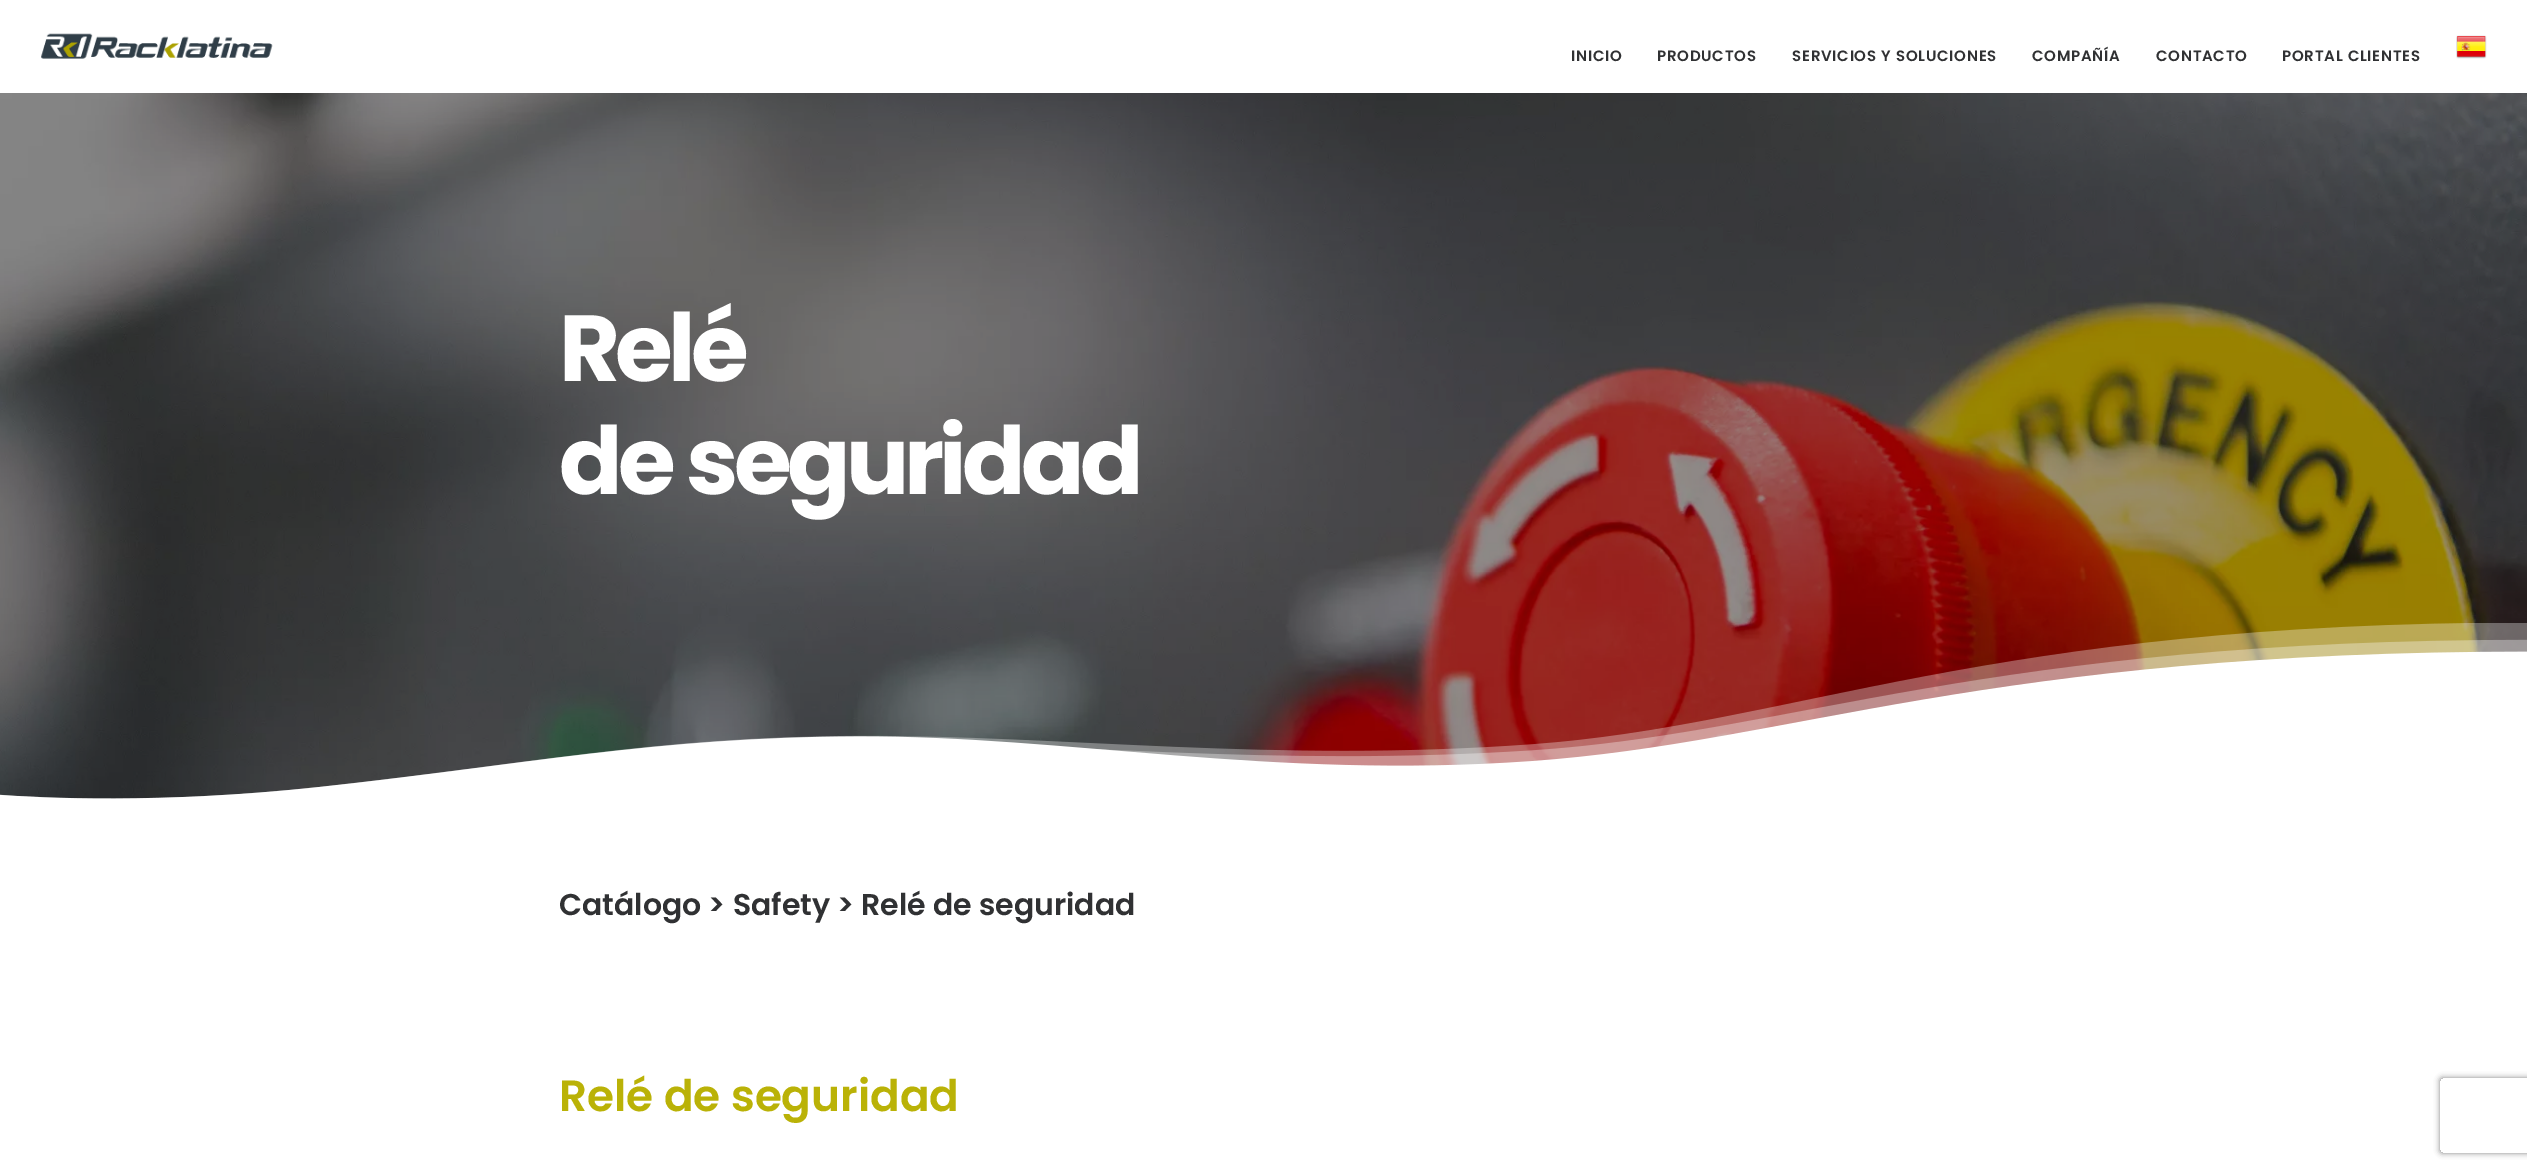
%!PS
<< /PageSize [2527 1170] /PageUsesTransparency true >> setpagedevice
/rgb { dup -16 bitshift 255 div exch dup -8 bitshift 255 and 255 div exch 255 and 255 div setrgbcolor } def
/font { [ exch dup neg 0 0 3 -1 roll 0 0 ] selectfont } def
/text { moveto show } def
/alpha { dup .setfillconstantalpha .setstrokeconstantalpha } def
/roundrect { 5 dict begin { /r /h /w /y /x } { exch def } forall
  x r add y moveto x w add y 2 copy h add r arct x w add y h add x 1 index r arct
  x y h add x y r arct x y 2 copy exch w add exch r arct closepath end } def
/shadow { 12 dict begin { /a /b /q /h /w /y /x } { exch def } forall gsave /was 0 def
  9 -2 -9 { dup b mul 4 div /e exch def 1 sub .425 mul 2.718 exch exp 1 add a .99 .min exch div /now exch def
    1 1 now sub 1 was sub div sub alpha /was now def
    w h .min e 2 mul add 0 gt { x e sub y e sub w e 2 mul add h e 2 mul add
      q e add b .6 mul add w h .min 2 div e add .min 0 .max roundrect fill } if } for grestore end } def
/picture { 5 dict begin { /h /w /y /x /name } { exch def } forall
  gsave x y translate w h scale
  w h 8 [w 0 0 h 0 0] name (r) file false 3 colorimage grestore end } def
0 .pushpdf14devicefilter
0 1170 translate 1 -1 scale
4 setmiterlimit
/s1 { /Poppins-SemiBold 30 font 16#303133 rgb } def
/s2 { /Poppins-SemiBold 43.75 font 16#BAB207 rgb } def
16#FFFFFF rgb
0 0 2527 1170 rectfill
(pic1.raw) 41 33 232 26 picture
/Poppins-SemiBold 15 font
16#303133 rgb
1571 61 moveto 0.75 0 (INICIO) ashow
1657 61 moveto 0.75 0 (PRODUCTOS) ashow
1792 61 moveto 0.75 0 (SERVICIOS Y SOLUCIONES) ashow
2032 61 moveto 0.75 0 (COMPAÑÍA) ashow
2156 61 moveto 0.75 0 (CONTACTO) ashow
2282 61 moveto 0.75 0 (PORTAL CLIENTES) ashow
(pic2.raw) 2456 35 31 24 picture
(pic3.raw) 0 93 2527 706 picture
/Poppins-Bold 93.75 font
16#FFFFFF rgb
559 381 moveto -4.75 0 (Relé) ashow
559 494 moveto -4.75 0 (de seguridad) ashow
(pic4.raw) 0 623 2527 186 picture
s1
(Catálogo > Safety > Relé de seguridad) 559 915 text
s2
(Relé de seguridad) 559 1111 text
gsave
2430 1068 moveto 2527 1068 lineto 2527 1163 lineto 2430 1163 lineto closepath 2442.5 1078 moveto 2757.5 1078 lineto 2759 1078 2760 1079 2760 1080.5 curveto 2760 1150.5 lineto 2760 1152 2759 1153 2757.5 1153 curveto 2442.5 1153 lineto 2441 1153 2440 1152 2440 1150.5 curveto 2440 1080.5 lineto 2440 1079 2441 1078 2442.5 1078 curveto closepath eoclip newpath
16#808080 rgb
2440 1078 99 75 2.5 3 1 shadow
grestore
.poppdf14devicefilter showpage
